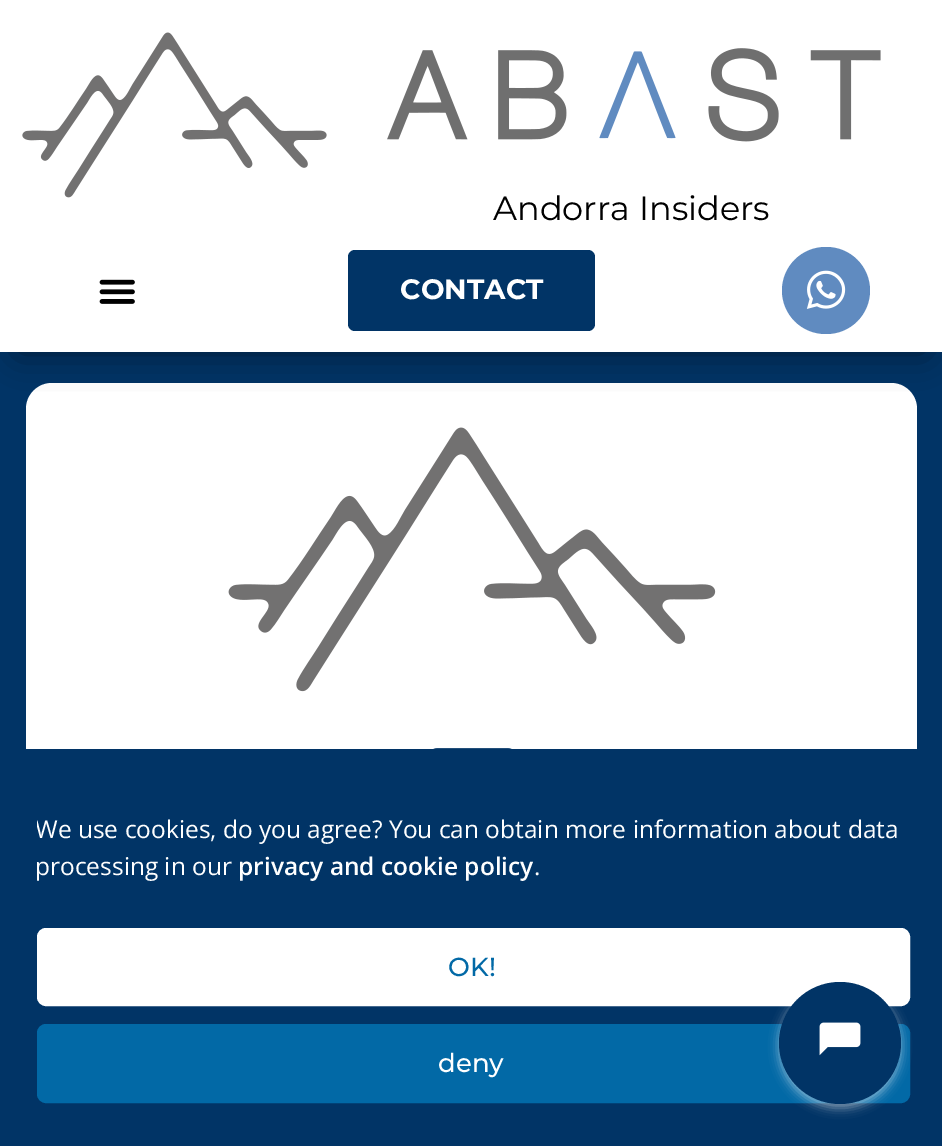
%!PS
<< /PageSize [942 1146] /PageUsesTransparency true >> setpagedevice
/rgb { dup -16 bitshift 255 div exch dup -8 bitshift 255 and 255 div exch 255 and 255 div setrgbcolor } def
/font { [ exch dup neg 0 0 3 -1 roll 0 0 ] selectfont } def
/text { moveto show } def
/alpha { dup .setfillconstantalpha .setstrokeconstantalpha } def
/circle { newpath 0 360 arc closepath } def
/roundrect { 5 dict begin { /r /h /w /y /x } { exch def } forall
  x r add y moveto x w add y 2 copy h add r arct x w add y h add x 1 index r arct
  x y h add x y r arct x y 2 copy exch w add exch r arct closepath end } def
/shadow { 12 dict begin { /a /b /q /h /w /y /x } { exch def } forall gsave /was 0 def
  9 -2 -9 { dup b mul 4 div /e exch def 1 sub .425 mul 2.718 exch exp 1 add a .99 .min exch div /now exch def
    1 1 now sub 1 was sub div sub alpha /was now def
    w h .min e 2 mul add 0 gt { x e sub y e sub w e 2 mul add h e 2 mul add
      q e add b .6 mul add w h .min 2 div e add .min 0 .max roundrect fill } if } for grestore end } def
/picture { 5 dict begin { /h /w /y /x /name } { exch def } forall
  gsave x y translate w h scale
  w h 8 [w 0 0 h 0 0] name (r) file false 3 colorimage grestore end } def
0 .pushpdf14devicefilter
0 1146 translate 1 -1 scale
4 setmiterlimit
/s1 { /Montserrat-Regular 33.5 font 16#000000 rgb } def
/s2 { /Montserrat-Bold 28 font 16#FFFFFF rgb } def
/s3 { /OpenSans-Regular 24.5 font 16#FFFFFF rgb } def
/s4 { /OpenSans-SemiBold 24.5 font 16#FFFFFF rgb } def
/s5 { /Montserrat-Medium 26 font 16#0269A6 rgb } def
/s6 { /Montserrat-Medium 26 font 16#FFFFFF rgb } def
16#013466 rgb
0 0 942 1146 rectfill
16#FFFFFF rgb
26 383 891 536 26 roundrect fill
16#000000 rgb
18 35 908 317 0 17.5 0.5 shadow
16#FFFFFF rgb
0 0 942 352 rectfill
(pic1.raw) 22 32 305 166 picture
(pic2.raw) 387 48 494 94 picture
s1
(Andorra Insiders) 493 220 text
(pic3.raw) 99 279 36 25 picture
16#013466 rgb
348 250 247 81 7 roundrect fill
s2
(CONTACT) 400 299 text
16#608BC0 rgb
782 247 88 87 43.5 roundrect fill
(pic4.raw) 806 270 40 39 picture
(pic5.raw) 228 427 488 265 picture
(pic6.raw) 433 748 79 1 picture
16#013466 rgb
2 749 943 397 21 roundrect fill
gsave
37 810 873 83 rectclip
s3
(We use cookies, do you agree? You can obtain more information about data) 35 838 text
grestore
s3
(processing in our) 35 875 text
s4
(privacy and cookie policy) 238 875 text
s3
(.) 534 875 text
38 929 871 76 8 roundrect gsave fill grestore
2 setlinewidth
stroke
s5
(OK!) 448 976 text
38 1025 871 77 8 roundrect gsave fill grestore
stroke
s6
(deny) 438 1072 text
779 985 122 123 61 5 0.5 shadow
16#013466 rgb
840 1043 61 circle fill
(pic7.raw) 819 1022 42 34 picture
.poppdf14devicefilter showpage
